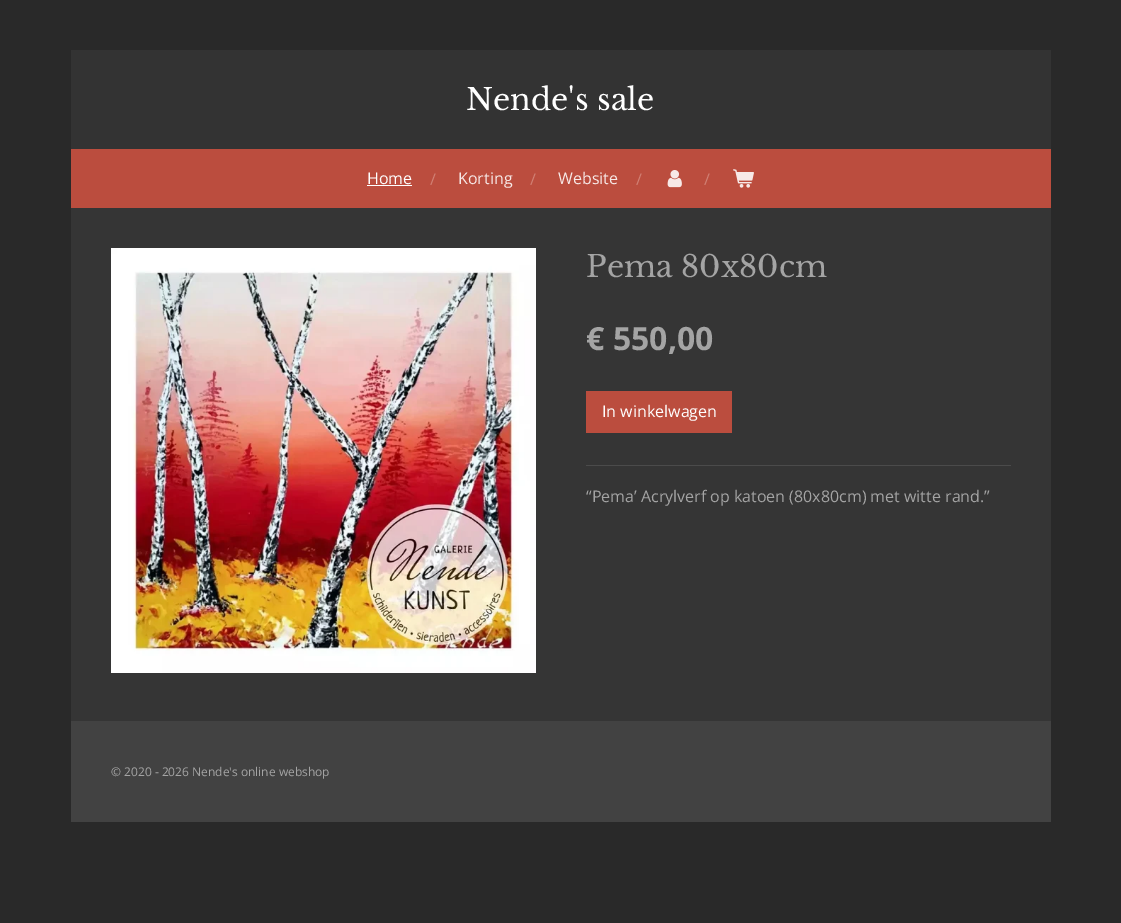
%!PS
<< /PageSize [1121 923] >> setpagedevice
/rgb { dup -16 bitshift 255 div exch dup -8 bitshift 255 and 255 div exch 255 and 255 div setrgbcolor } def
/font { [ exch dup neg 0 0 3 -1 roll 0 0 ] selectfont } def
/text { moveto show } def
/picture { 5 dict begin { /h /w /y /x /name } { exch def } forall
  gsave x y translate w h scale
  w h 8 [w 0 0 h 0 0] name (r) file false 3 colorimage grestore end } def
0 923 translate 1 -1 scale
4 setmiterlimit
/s1 { /LibreBaskerville-Regular 30 font 16#FFFFFF rgb } def
/s2 { /OpenSans-Regular 16 font 16#FFFFFF rgb } def
/s3 { /OpenSans-Regular 16 font 16#D18074 rgb } def
/s4 { /OpenSans-Regular 16 font 16#F7E9E7 rgb } def
/s5 { /LibreBaskerville-Regular 30 font 16#A4A4A4 rgb } def
/s6 { /OpenSans-Bold 32 font 16#A4A4A4 rgb } def
/s7 { /OpenSans-Regular 16 font 16#A4A4A4 rgb } def
/s8 { /OpenSans-Regular 12 font 16#A4A4A4 rgb } def
16#292929 rgb
0 0 1121 923 rectfill
16#333333 rgb
71 50 980 99 rectfill
s1
(Nende's sale) 466 110 text
16#BB4D3E rgb
71 149 980 59 rectfill
s2
(Home) 367 184 text
367 185 45 1 rectfill
s3
(/) 430 185 text
s4
(Korting) 458 184 text
s3
(/) 530 185 text
s4
(Website) 558 184 text
s3
(/) 636 185 text
(pic1.raw) 667 170 15 18 picture
(/) 704 185 text
(pic2.raw) 733 169 21 19 picture
16#353535 rgb
71 208 980 513 rectfill
(pic3.raw) 111 248 425 425 picture
s5
(Pema 80x80cm) 586 277 text
s6
(€ 550,00) 586 350 text
16#BB4D3E rgb
586 391 146 42 rectfill
s2
(In winkelwagen) 602 417 text
16#4B4B4B rgb
586 465 425 1 rectfill
s7
(“Pema’ Acrylverf op katoen \(80x80cm\) met witte rand.”) 586 502 text
16#424242 rgb
71 721 980 101 rectfill
s8
(© 2020 - 2026 Nende's online webshop) 111 776 text
showpage
